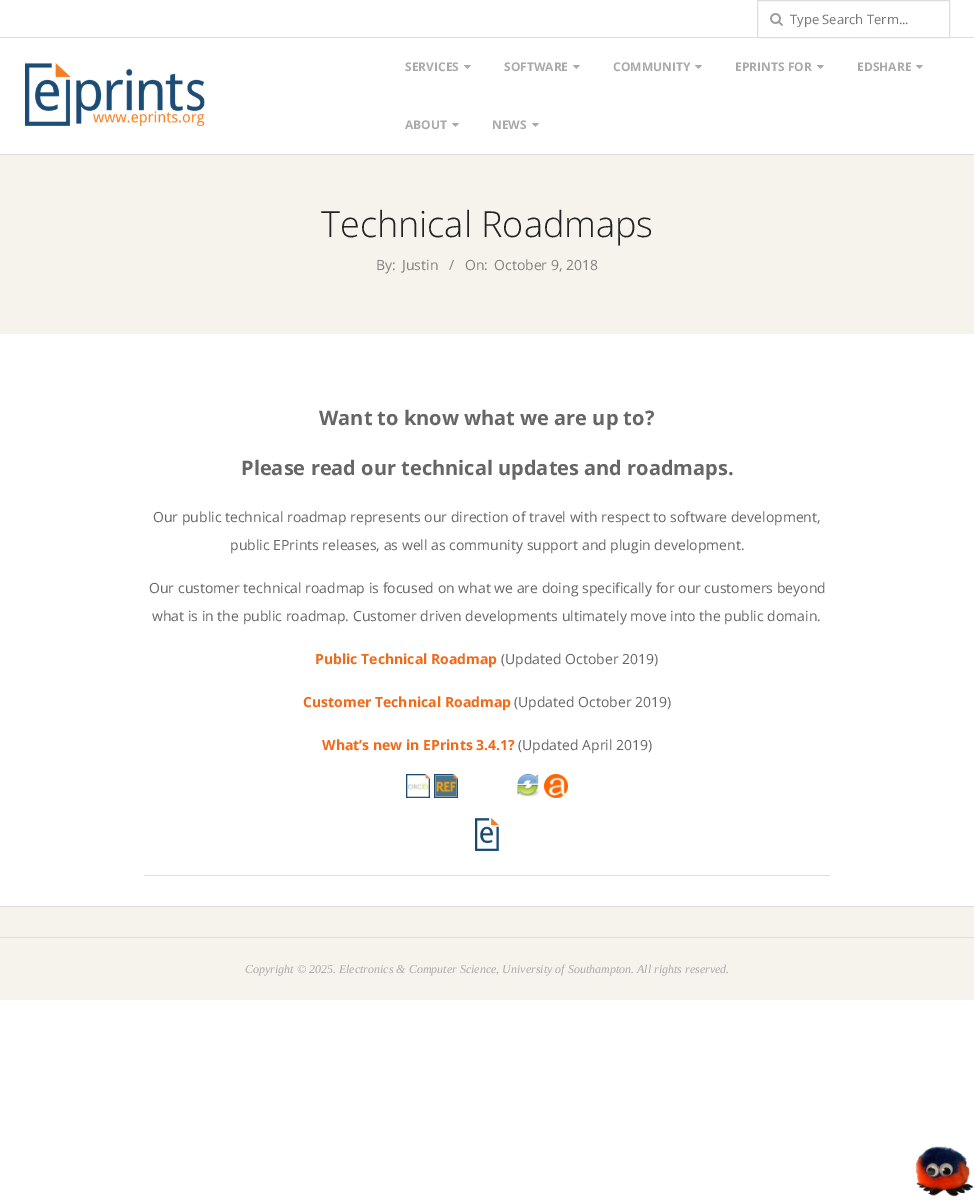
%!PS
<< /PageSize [974 1201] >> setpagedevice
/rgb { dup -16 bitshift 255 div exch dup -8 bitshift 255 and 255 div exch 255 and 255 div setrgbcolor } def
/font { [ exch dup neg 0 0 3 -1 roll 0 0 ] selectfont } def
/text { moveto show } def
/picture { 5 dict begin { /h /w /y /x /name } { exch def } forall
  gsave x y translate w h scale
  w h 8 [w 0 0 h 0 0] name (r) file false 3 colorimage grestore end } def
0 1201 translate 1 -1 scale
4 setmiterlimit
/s1 { /OpenSans-Regular 13 font 16#757575 rgb } def
/s2 { /OpenSans-Bold 12 font 16#AAAAAA rgb } def
/s3 { /OpenSans-Light 36 font 16#222222 rgb } def
/s4 { /OpenSans-Regular 14 font 16#838281 rgb } def
/s5 { /OpenSans-Bold 20 font 16#666666 rgb } def
/s6 { /OpenSans-Regular 14 font 16#666666 rgb } def
/s7 { /OpenSans-Bold 14 font 16#F06A1A rgb } def
/s8 { /LiberationSerif-Italic 12 font 16#AAAAAA rgb } def
16#FFFFFF rgb
0 0 974 1201 rectfill
16#DDDDDD rgb
757.5 0.5 192 37 rectstroke
(pic1.raw) 770 13 13 13 picture
s1
(Type Search Term...) 790 24 text
16#DDDDDD rgb
0 37 974 1 rectfill
0 154 974 1 rectfill
(pic2.raw) 25 63 180 63 picture
s2
(SERVICES) 405 71 text
(pic3.raw) 464 65 7 4 picture
(SOFTWARE) 504 71 text
(pic3.raw) 573 65 7 4 picture
(COMMUNITY) 613 71 text
(pic3.raw) 695 65 7 4 picture
(EPRINTS FOR) 735 71 text
(pic3.raw) 817 65 7 4 picture
(EDSHARE) 857 71 text
(pic3.raw) 916 65 7 4 picture
(ABOUT) 405 129 text
(pic3.raw) 452 123 7 4 picture
(NEWS) 492 129 text
(pic3.raw) 532 123 7 4 picture
16#F6F3ED rgb
0 155 974 179 rectfill
s3
(Technical Roadmaps) 321 237 text
s4
(By:) 376 270 text
(Justin) 402 270 text
(/) 449 270 text
(On:) 465 270 text
(October 9, 2018) 494 270 text
16#DDDDDD rgb
144 875 686 1 rectfill
s5
(Want to know what we are up to?) 319 425 text
(Please read our technical updates and roadmaps.) 241 475 text
s6
(Our public technical roadmap represents our direction of travel with respect to software development,) 153 522 text
(public EPrints releases, as well as community support and plugin development.) 230 550 text
(Our customer technical roadmap is focused on what we are doing specifically for our customers beyond) 149 593 text
(what is in the public roadmap. Customer driven developments ultimately move into the public domain.) 152 621 text
s7
(Public Technical Roadmap) 315 664 text
s6
(\(Updated October 2019\)) 501 664 text
s7
(Customer Technical Roadmap) 303 707 text
s6
(\(Updated October 2019\)) 514 707 text
s7
(What’s new in EPrints 3.4.1?) 322 750 text
s6
(\(Updated April 2019\)) 518 750 text
(pic4.raw) 406 774 24 24 picture
(pic5.raw) 434 774 24 24 picture
(pic6.raw) 517 774 22 23 picture
(pic7.raw) 544 774 24 24 picture
(pic8.raw) 475 818 24 33 picture
16#F6F3ED rgb
0 907 974 30 rectfill
16#DDDDDD rgb
0 906 974 1 rectfill
16#F6F3ED rgb
0 938 974 62 rectfill
16#DDDDDD rgb
0 937 974 1 rectfill
s8
(Copyright © 2025. Electronics & Computer Science, University of Southampton. All rights reserved.) 245 973 text
(pic9.raw) 915 1146 59 51 picture
showpage
